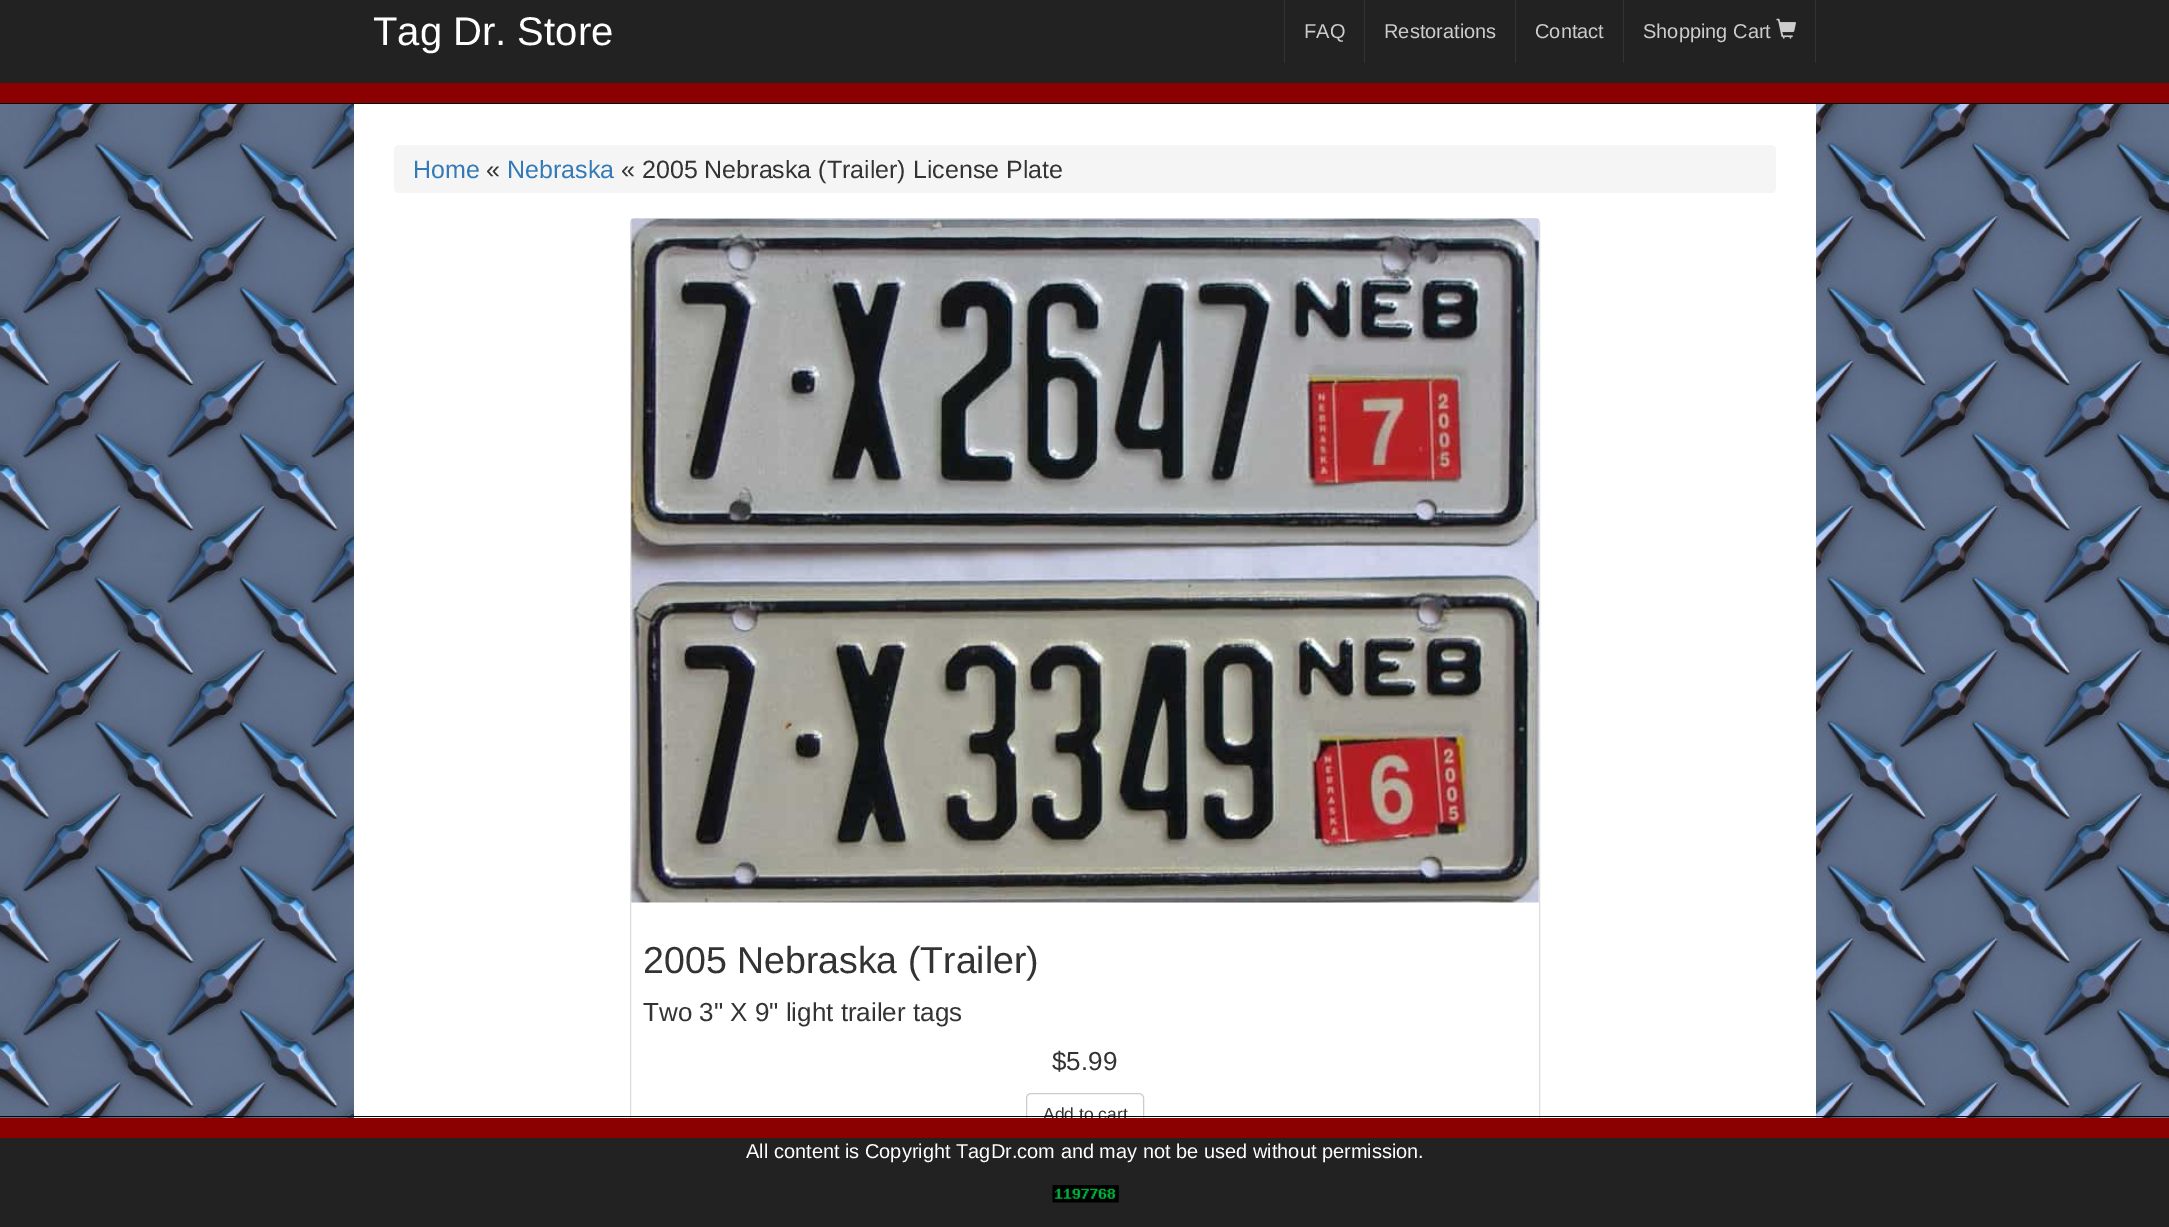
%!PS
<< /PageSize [2169 1227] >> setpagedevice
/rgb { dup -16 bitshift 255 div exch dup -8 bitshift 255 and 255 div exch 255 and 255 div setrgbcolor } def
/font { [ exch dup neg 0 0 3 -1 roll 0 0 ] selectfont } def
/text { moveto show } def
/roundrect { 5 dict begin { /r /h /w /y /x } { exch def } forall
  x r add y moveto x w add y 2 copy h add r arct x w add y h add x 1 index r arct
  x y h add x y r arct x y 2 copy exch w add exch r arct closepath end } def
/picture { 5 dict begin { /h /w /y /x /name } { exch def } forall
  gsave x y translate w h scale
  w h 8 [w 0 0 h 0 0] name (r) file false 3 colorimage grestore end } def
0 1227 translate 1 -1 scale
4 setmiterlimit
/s1 { /LiberationSans-Regular 40 font 16#FFFFFF rgb } def
/s2 { /LiberationSans-Regular 20 font 16#CCCCCC rgb } def
/s3 { /LiberationSans-Regular 25 font 16#337AB7 rgb } def
/s4 { /LiberationSans-Regular 25 font 16#333333 rgb } def
/s5 { /LiberationSans-Regular 37.5 font 16#333333 rgb } def
/s6 { /LiberationSans-Regular 26 font 16#333333 rgb } def
/s7 { /LiberationSans-Regular 17.5 font 16#333333 rgb } def
/s8 { /LiberationSans-Regular 20 font 16#FFFFFF rgb } def
16#FFFFFF rgb
0 0 2169 1227 rectfill
(pic1.raw) 0 104 2169 1014 picture
16#222222 rgb
0 0 2169 83 rectfill
16#080808 rgb
0 103 2169 1 rectfill
s1
(Tag Dr. Store) 373 45 text
16#333333 rgb
1284 0 1 63 rectfill
s2
(FAQ) 1304 38 text
16#333333 rgb
1364 0 1 63 rectfill
s2
(Restorations) 1384 38 text
16#333333 rgb
1515 0 1 63 rectfill
s2
(Contact) 1535 38 text
16#333333 rgb
1815 0 1 63 rectfill
1623 0 1 63 rectfill
s2
(Shopping Cart) 1643 38 text
(pic2.raw) 1776 18 20 21 picture
16#8B0000 rgb
0 83 2169 20 rectfill
16#FFFFFF rgb
354 104 1462 1014 rectfill
16#F5F5F5 rgb
394 145 1382 48 5 roundrect fill
s3
(Home) 413 178 text
s4
(«) 486 178 text
s3
(Nebraska) 507 178 text
s4
(« 2005 Nebraska \(Trailer\) License Plate) 621 178 text
16#DDDDDD rgb
630.5 218.5 909 929 4.5 roundrect stroke
(pic3.raw) 631 218 908 685 picture
s5
(2005 Nebraska \(Trailer\)) 643 973 text
s6
(Two 3" X 9" light trailer tags) 643 1021 text
($5.99) 1052 1070 text
16#CCCCCC rgb
1026.5 1093.5 117 41 4.5 roundrect stroke
s7
(Add to cart) 1043 1120 text
16#222222 rgb
0 1138 2169 89 rectfill
16#080808 rgb
0 1116 2169 1 rectfill
16#8B0000 rgb
0 1118 2169 20 rectfill
s8
(All content is Copyright TagDr.com and may not be used without permission.) 746 1158 text
(pic4.raw) 1052 1185 67 18 picture
showpage
